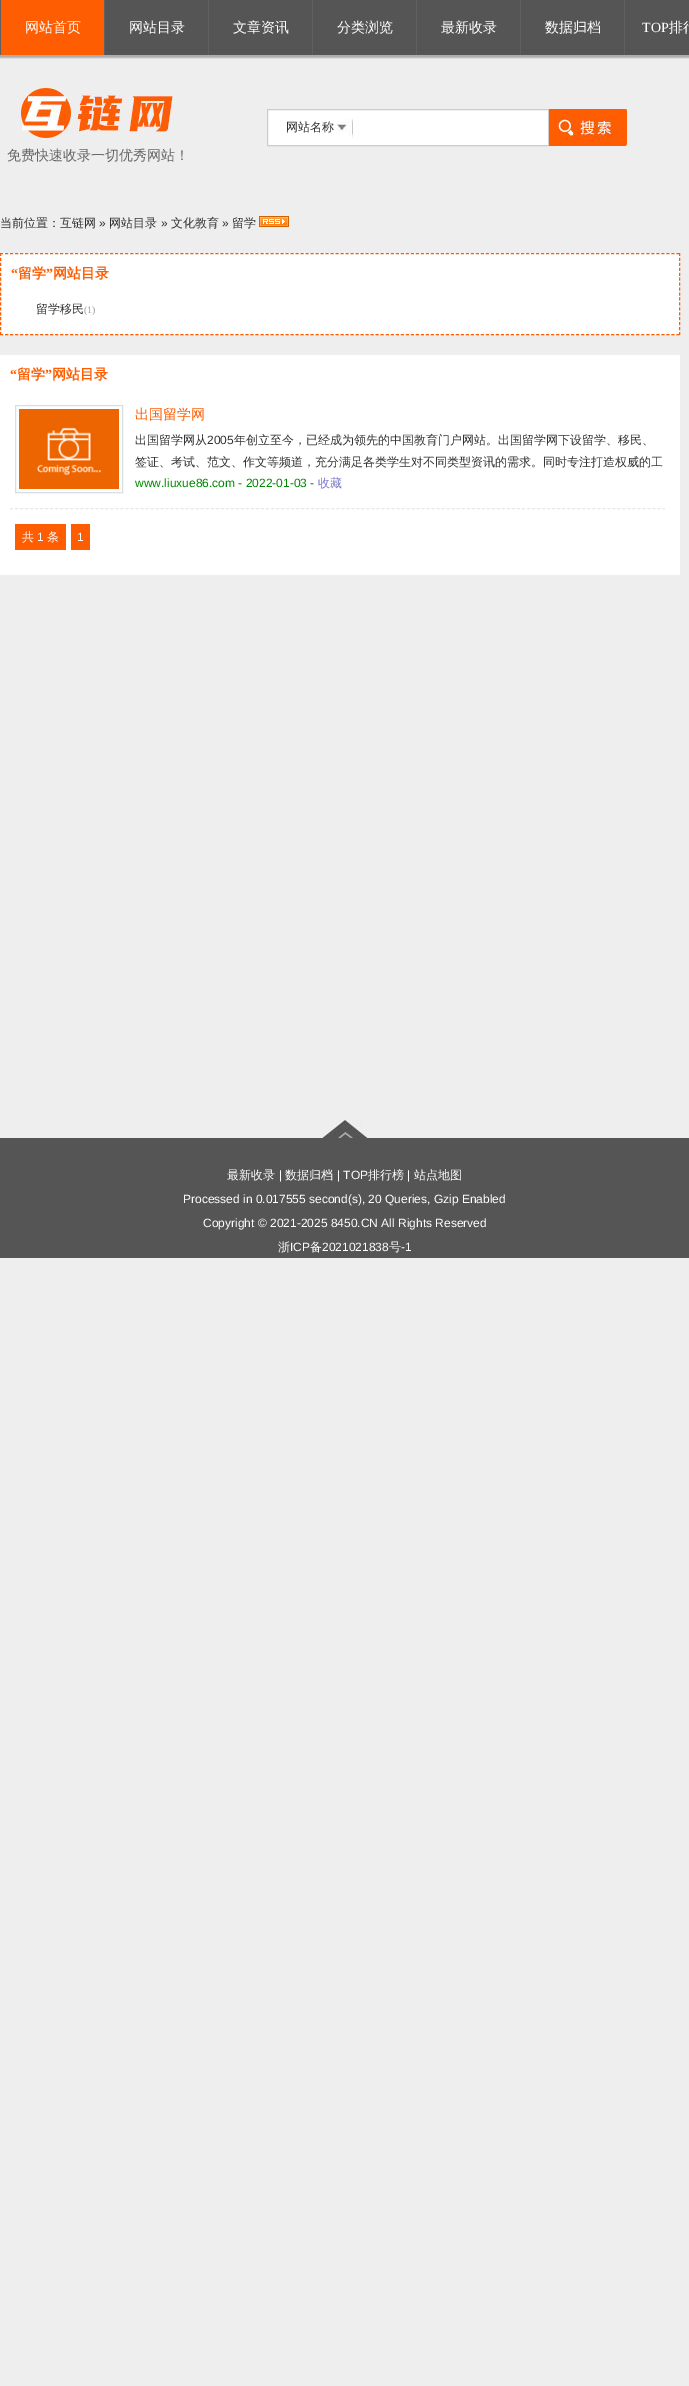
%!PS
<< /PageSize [689 2386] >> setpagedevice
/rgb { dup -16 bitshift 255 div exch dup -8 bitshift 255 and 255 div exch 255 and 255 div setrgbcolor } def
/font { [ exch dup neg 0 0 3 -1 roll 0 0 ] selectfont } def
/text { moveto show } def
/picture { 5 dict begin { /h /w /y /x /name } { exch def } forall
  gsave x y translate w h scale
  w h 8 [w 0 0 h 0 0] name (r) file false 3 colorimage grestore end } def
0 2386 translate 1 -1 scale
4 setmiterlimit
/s1 { /WenQuanYiZenHei-Medium 14 font 16#FFFFFF rgb } def
/s2 { /LiberationSerif-Regular 14 font 16#FFFFFF rgb } def
/s3 { /WenQuanYiZenHei-Medium 12 font 16#333333 rgb } def
/s4 { /WenQuanYiZenHei-Medium 14 font 16#666666 rgb } def
/s5 { /LiberationSans-Regular 12 font 16#333333 rgb } def
/s6 { /LiberationSerif-Bold 14 font 16#FE5D02 rgb } def
/s7 { /WenQuanYiZenHei-Bold 14 font 16#FE5D02 rgb } def
/s8 { /LiberationSerif-Regular 10 font 16#999999 rgb } def
/s9 { /WenQuanYiZenHei-Medium 14 font 16#FE5D02 rgb } def
/s10 { /LiberationSans-Regular 12 font 16#008800 rgb } def
/s11 { /WenQuanYiZenHei-Medium 12 font 16#7777CC rgb } def
/s12 { /WenQuanYiZenHei-Medium 12 font 16#FFFFFF rgb } def
/s13 { /LiberationSans-Regular 12 font 16#FFFFFF rgb } def
16#EEEEEE rgb
0 0 689 2386 rectfill
(pic1.raw) 0 0 689 59 picture
16#FE5D02 rgb
1 0 103 55 rectfill
16#606060 rgb
0 0 1 55 rectfill
s1
(网站首页) 25 32 text
16#606060 rgb
104 0 1 55 rectfill
s1
(网站目录) 129 32 text
16#606060 rgb
208 0 1 55 rectfill
s1
(文章资讯) 233 32 text
16#606060 rgb
312 0 1 55 rectfill
s1
(分类浏览) 337 32 text
16#606060 rgb
416 0 1 55 rectfill
s1
(最新收录) 441 32 text
16#606060 rgb
520 0 1 55 rectfill
s1
(数据归档) 545 32 text
16#606060 rgb
624 0 1 55 rectfill
s2
(TOP) 642 32 text
s1
(排行) 669 32 text
267.5 109.5 moveto 548.5 109.5 lineto 548.5 145.5 lineto 267.5 145.5 lineto closepath gsave fill grestore
16#CCCCCC rgb
stroke
(pic2.raw) 549 109 78 37 picture
(pic3.raw) 332 118 21 21 picture
s3
(网站名称) 286 131 text
(pic4.raw) 16 88 160 50 picture
s4
(免费快速收录一切优秀网站！) 7 160 text
s3
(当前位置：互链网) 0 227 text
s5
(») 99 227 text
s3
(网站目录) 109 227 text
s5
(») 161 227 text
s3
(文化教育) 171 227 text
s5
(») 222 227 text
s3
(留学) 232 227 text
(pic5.raw) 259 216 30 11 picture
16#FFFFFF rgb
0 253 680 82 rectfill
16#FE5D02 rgb
[3 2.01] 0 setdash
0 253.5 moveto 680 253.5 lineto stroke
[3 1.94] 0 setdash
679.5 253 moveto 679.5 335 lineto stroke
[3 2.01] 0 setdash
0 334.5 moveto 680 334.5 lineto stroke
[3 1.94] 0 setdash
0.5 253 moveto 0.5 335 lineto stroke
s6
(“) 11 278 text
s7
(留学) 18 278 text
s6
(”) 46 278 text
s7
(网站目录) 53 278 text
s3
(留学移民) 36 313 text
s8
(\(1\)) 84 313 text
16#FFFFFF rgb
0 355 680 220 rectfill
s6
(“) 10 379 text
s7
(留学) 17 379 text
s6
(”) 45 379 text
s7
(网站目录) 52 379 text
16#E8E8E8 rgb
[3 2.02] 0 setdash
10 508.5 moveto 665 508.5 lineto stroke
16#D7DDE3 rgb
[] 0 setdash
15.5 405.5 107 87 rectstroke
(pic6.raw) 19 409 100 80 picture
s9
(出国留学网) 135 419 text
s3
(出国留学网从) 135 444 text
s5
(2005) 207 444 text
s3
(年创立至今，已经成为领先的中国教育门户网站。出国留学网下设留学、移民、) 234 444 text
(签证、考试、范文、作文等频道，充分满足各类学生对不同类型资讯的需求。同时专注打造权威的工) 135 466 text
s10
(www.liuxue86.com - 2022-01-03 -) 135 487 text
s11
(收藏) 318 487 text
16#FE5D02 rgb
15 524 51 26 rectfill
s12
(共) 22 541 text
s13
(1) 37 541 text
s12
(条) 47 541 text
16#FE5D02 rgb
71 524 19 26 rectfill
s13
(1) 77 541 text
16#555555 rgb
0 1138 689 120 rectfill
(pic7.raw) 322 1120 46 18 picture
s12
(最新收录) 227 1179 text
s13
(|) 279 1179 text
s12
(数据归档) 285 1179 text
s13
(| TOP) 337 1179 text
s12
(排行榜) 368 1179 text
s13
(|) 407 1179 text
s12
(站点地图) 414 1179 text
s13
(Processed in 0.017555 second\(s\), 20 Queries, Gzip Enabled) 183 1203 text
(Copyright © 2021-2025 8450.CN All Rights Reserved) 203 1227 text
s12
(浙) 278 1251 text
s13
(ICP) 290 1251 text
s12
(备) 310 1251 text
s13
(2021021838) 322 1251 text
s12
(号) 389 1251 text
s13
(-1) 401 1251 text
showpage
